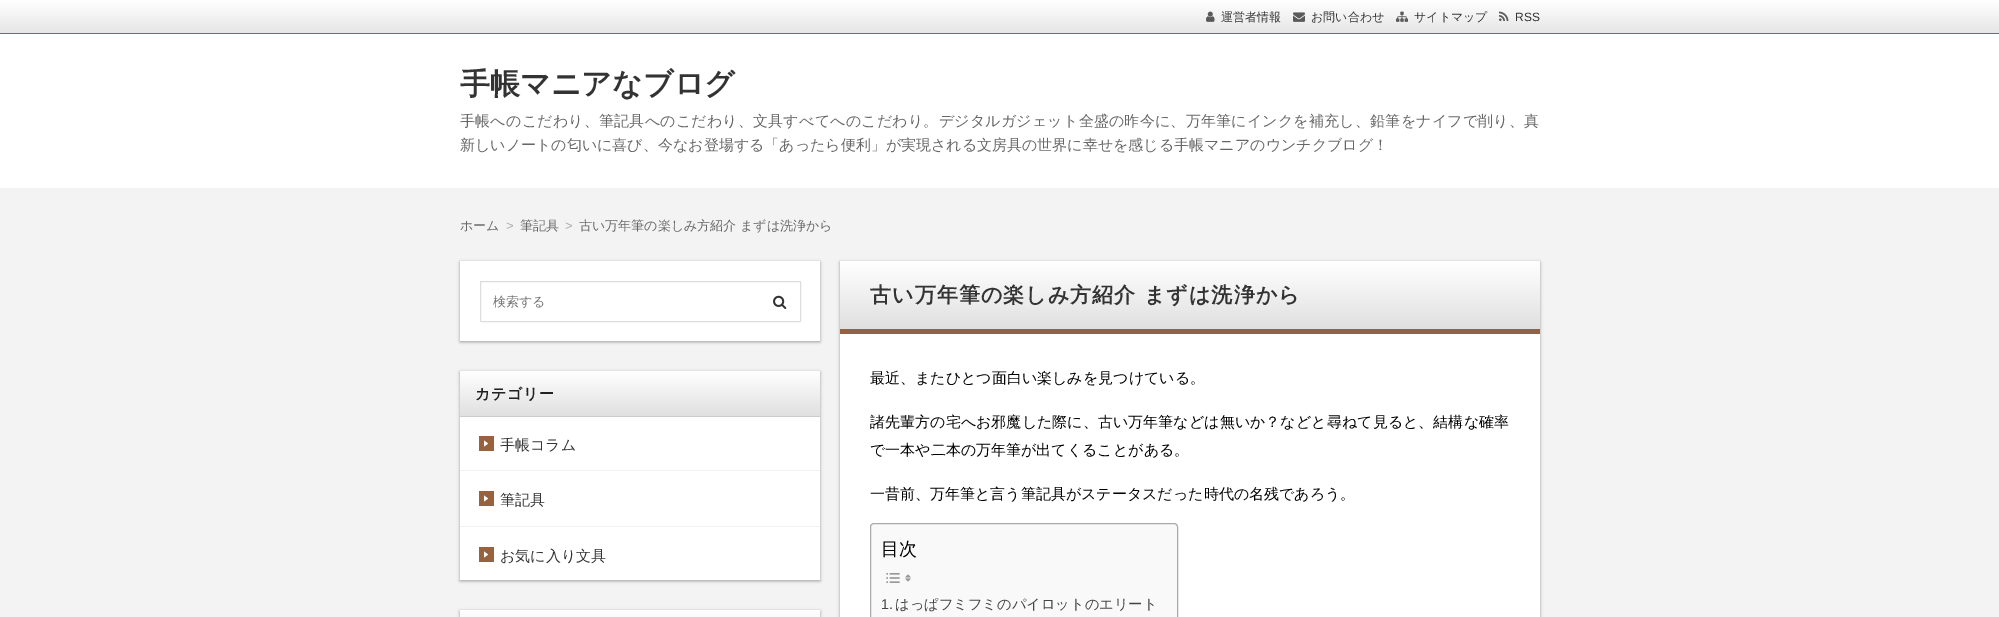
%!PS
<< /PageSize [1999 617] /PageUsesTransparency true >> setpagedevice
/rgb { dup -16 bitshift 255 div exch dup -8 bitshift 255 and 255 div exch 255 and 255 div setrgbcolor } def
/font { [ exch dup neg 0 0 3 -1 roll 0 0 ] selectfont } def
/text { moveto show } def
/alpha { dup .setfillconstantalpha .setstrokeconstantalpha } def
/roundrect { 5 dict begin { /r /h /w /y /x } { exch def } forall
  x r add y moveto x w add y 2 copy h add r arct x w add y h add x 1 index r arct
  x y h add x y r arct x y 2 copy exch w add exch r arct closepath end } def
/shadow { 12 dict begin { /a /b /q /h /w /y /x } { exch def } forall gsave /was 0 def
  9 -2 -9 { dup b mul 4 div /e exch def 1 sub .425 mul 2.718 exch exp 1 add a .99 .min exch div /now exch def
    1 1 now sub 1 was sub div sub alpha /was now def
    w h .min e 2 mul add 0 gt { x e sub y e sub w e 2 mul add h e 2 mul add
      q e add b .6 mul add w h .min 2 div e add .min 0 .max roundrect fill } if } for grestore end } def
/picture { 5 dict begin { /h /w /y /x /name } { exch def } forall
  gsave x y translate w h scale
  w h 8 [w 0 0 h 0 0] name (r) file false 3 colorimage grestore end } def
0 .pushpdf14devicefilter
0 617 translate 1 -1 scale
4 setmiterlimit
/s1 { /WenQuanYiZenHei-Medium 12 font 16#333333 rgb } def
/s2 { /LiberationSans-Regular 12 font 16#333333 rgb } def
/s3 { /WenQuanYiZenHei-Bold 30 font 16#333333 rgb } def
/s4 { /WenQuanYiZenHei-Medium 15 font 16#666666 rgb } def
/s5 { /WenQuanYiZenHei-Medium 13 font 16#666666 rgb } def
/s6 { /LiberationSans-Regular 13 font 16#AAAAAA rgb } def
/s7 { /WenQuanYiZenHei-Medium 13 font 16#757575 rgb } def
/s8 { /WenQuanYiZenHei-Medium 15 font 16#333333 rgb } def
/s9 { /WenQuanYiZenHei-Medium 15 font 16#000000 rgb } def
/s10 { /WenQuanYiZenHei-Medium 18 font 16#000000 rgb } def
/s11 { /LiberationSans-Regular 14.25 font 16#444444 rgb } def
/s12 { /WenQuanYiZenHei-Medium 14.25 font 16#444444 rgb } def
16#F3F3F3 rgb
0 0 1999 617 rectfill
16#FFFFFF rgb
0 34 1999 154 rectfill
gsave 0 0 moveto 1999 0 lineto 1999 33 lineto 0 33 lineto closepath clip newpath
<< /ShadingType 2 /ColorSpace /DeviceRGB /Coords [1000 0 1000 33] /Extend [true true] /Function << /FunctionType 2 /Domain [0 1] /C0 [1 1 1] /C1 [0.902 0.902 0.902] /N 1 >> >> shfill grestore
16#946243 rgb
0 33 1999 1 rectfill
(pic1.raw) 1206 11 9 11 picture
s1
(運営者情報) 1221 21 text
(pic2.raw) 1293 12 12 10 picture
(お問い合わせ) 1311 21 text
(pic3.raw) 1396 11 12 11 picture
(サイトマップ) 1414 21 text
(pic4.raw) 1499 11 10 10 picture
s2
(RSS) 1515 21 text
s3
(手帳マニアなブログ) 460 94 text
/WenQuanYiZenHei-Medium 15 font
16#666666 rgb
460 126 moveto 0.2 0 (手帳へのこだわり、筆記具へのこだわり、文具すべてへのこだわり。デジタルガジェット全盛の昨今に、万年筆にインクを補充し、鉛筆をナイフで削り、真) ashow
(新しいノートの匂いに喜び、今なお登場する「あったら便利」が実現される文房具の世界に幸せを感じる手帳マニアのウンチクブログ！) 460 150 text
s5
(ホーム) 460 230 text
s6
(>) 506 230 text
s5
(筆記具) 520 230 text
s6
(>) 565 230 text
s5
(古い万年筆の楽しみ方紹介 まずは洗浄から) 579 230 text
16#000000 rgb
460 262 360 80 0 1.5 0.33 shadow
16#FFFFFF rgb
460 261 360 80 rectfill
16#DDDDDD rgb
480.5 281.5 320 40 0.5 roundrect stroke
s7
(検索する) 493 306 text
(pic5.raw) 773 295 14 14 picture
16#000000 rgb
460 372 360 209 0 1.5 0.33 shadow
16#FFFFFF rgb
460 417 360 163 rectfill
gsave 460 371 moveto 820 371 lineto 820 416 lineto 460 416 lineto closepath clip newpath
<< /ShadingType 2 /ColorSpace /DeviceRGB /Coords [640 371 640 416] /Extend [true true] /Function << /FunctionType 2 /Domain [0 1] /C0 [1 1 1] /C1 [0.878 0.878 0.878] /N 1 >> >> shfill grestore
16#CCCCCC rgb
460 416 360 1 rectfill
/WenQuanYiZenHei-Bold 15 font
16#222222 rgb
475 399 moveto 0.75 0 (カテゴリー) ashow
0.05 alpha
16#000000 rgb
459 470 362 1 rectfill
1 alpha
16#98623C rgb
479 436 15 15 rectfill
(pic6.raw) 484 440 4 7 picture
s8
(手帳コラム) 500 450 text
0.05 alpha
16#000000 rgb
459 526 362 1 rectfill
1 alpha
16#98623C rgb
479 491 15 15 rectfill
(pic6.raw) 484 495 4 7 picture
s8
(筆記具) 500 505 text
16#98623C rgb
479 547 15 15 rectfill
(pic6.raw) 484 551 4 7 picture
s8
(お気に入り文具) 500 561 text
16#000000 rgb
460 611 360 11 0 1.5 0.33 shadow
gsave 460 610 moveto 820 610 lineto 820 617 lineto 460 617 lineto closepath clip newpath
<< /ShadingType 2 /ColorSpace /DeviceRGB /Coords [640 610 640 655] /Extend [true true] /Function << /FunctionType 2 /Domain [0 1] /C0 [1 1 1] /C1 [0.878 0.878 0.878] /N 1 >> >> shfill grestore
840 262 700 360 0 1.5 0.33 shadow
16#FFFFFF rgb
840 334 700 283 rectfill
gsave 840 261 moveto 1540 261 lineto 1540 329 lineto 840 329 lineto closepath clip newpath
<< /ShadingType 2 /ColorSpace /DeviceRGB /Coords [1190 261 1190 329] /Extend [true true] /Function << /FunctionType 2 /Domain [0 1] /C0 [1 1 1] /C1 [0.878 0.878 0.878] /N 1 >> >> shfill grestore
16#946243 rgb
840 329 700 5 rectfill
/WenQuanYiZenHei-Bold 21 font
16#333333 rgb
870 302 moveto 1.05 0 (古い万年筆の楽しみ方紹介 まずは洗浄から) ashow
s9
(最近、またひとつ面白い楽しみを見つけている。) 870 383 text
870 427 moveto 0.05 0 (諸先輩方の宅へお邪魔した際に、古い万年筆などは無いか？などと尋ねて見ると、結構な確率) ashow
(で一本や二本の万年筆が出てくることがある。) 870 455 text
(一昔前、万年筆と言う筆記具がステータスだった時代の名残であろう。) 870 499 text
16#F9F9F9 rgb
870.5 523.5 307 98 3.5 roundrect gsave fill grestore
16#AAAAAA rgb
stroke
s10
(目次) 881 555 text
(pic7.raw) 886 573 14 10 picture
(pic8.raw) 905 574 6 8 picture
s11
(1.) 881 609 text
s12
(はっぱフミフミのパイロットのエリート) 895 609 text
.poppdf14devicefilter showpage
